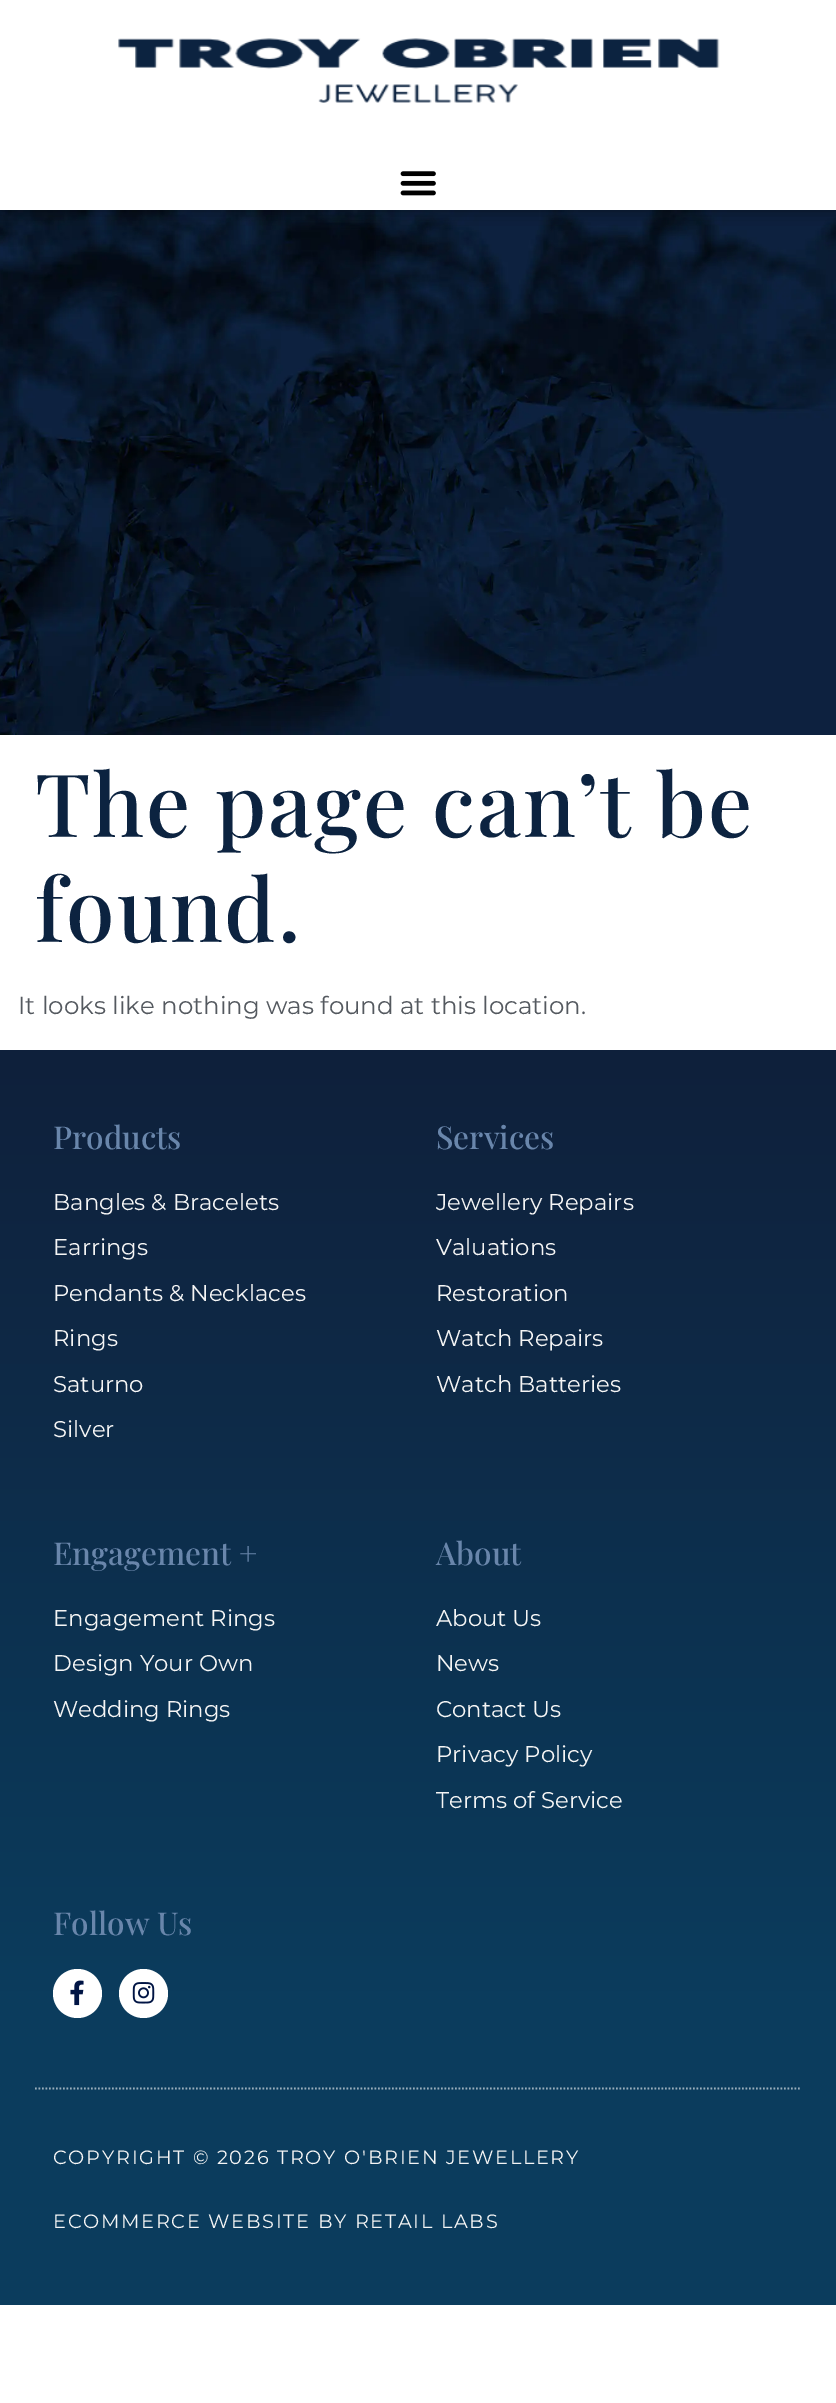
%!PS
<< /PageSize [836 2403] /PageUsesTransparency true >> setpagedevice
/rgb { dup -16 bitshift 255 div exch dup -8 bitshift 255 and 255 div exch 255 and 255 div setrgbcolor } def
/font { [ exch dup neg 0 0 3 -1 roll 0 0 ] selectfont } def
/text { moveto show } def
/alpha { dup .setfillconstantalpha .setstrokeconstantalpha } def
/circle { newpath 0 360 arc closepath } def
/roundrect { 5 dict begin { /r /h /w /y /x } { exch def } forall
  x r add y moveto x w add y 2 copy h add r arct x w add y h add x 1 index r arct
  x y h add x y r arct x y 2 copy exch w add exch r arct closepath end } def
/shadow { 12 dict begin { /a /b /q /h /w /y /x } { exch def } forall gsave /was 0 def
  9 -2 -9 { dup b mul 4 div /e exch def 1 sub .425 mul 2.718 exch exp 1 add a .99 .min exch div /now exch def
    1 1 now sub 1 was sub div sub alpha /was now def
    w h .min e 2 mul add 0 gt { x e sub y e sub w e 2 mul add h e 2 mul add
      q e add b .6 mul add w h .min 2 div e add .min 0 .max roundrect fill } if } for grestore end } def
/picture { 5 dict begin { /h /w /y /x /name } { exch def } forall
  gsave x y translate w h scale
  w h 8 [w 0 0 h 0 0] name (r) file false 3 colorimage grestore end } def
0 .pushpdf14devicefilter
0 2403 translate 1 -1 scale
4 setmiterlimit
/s1 { /Montserrat-Regular 24.5 font 16#54595F rgb } def
/s2 { /PlayfairDisplay-Medium 31.5 font 16#6986AB rgb } def
/s3 { /Montserrat-Regular 22.75 font 16#F5F5F5 rgb } def
16#FFFFFF rgb
0 0 836 2403 rectfill
(pic3.raw) 0 210 836 525 picture
gsave
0 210 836 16 rectclip
16#000000 rgb
0 0 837 210 0 9 0.5 shadow
grestore
(pic1.raw) 118 38 602 65 picture
(pic2.raw) 400 171 36 25 picture
/PlayfairDisplay-Medium 87.5 font
16#0C2340 rgb
35 837 moveto 1.75 0 (The page can’t be) ashow
35 942 moveto 1.75 0 (found.) ashow
s1
(It looks like nothing was found at this location.) 18 1014 text
gsave 0 1050 moveto 836 1050 lineto 836 2305 lineto 0 2305 lineto closepath clip newpath
<< /ShadingType 2 /ColorSpace /DeviceRGB /Coords [418 1050 418 2305] /Extend [true true] /Function << /FunctionType 3 /Domain [0 1] /Functions [<< /FunctionType 2 /Domain [0 1] /C0 [0.059 0.125 0.231] /C1 [0.043 0.235 0.365] /N 1 >> << /FunctionType 2 /Domain [0 1] /C0 [0.043 0.235 0.365] /C1 [0.043 0.235 0.365] /N 1 >>] /Bounds [0.75] /Encode [0 1 0 1] >> >> shfill grestore
s2
(Products) 53 1149 text
s3
(Bangles & Bracelets) 53 1210 text
(Earrings) 53 1255 text
(Pendants & Necklaces) 53 1301 text
(Rings) 53 1346 text
(Saturno) 53 1392 text
(Silver) 53 1437 text
s2
(Services) 436 1149 text
s3
(Jewellery Repairs) 436 1210 text
(Valuations) 436 1255 text
(Restoration) 436 1301 text
(Watch Repairs) 436 1346 text
(Watch Batteries) 436 1392 text
s2
(Engagement +) 53 1565 text
s3
(Engagement Rings) 53 1626 text
(Design Your Own) 53 1671 text
(Wedding Rings) 53 1717 text
s2
(About) 436 1565 text
s3
(About Us) 436 1626 text
(News) 436 1671 text
(Contact Us) 436 1717 text
(Privacy Policy) 436 1762 text
(Terms of Service) 436 1808 text
s2
(Follow Us) 53 1935 text
16#FFFFFF rgb
77.5 1993.5 24.5 circle fill
(pic4.raw) 70 1980 14 26 picture
143.5 1993.5 24.5 circle fill
(pic5.raw) 132 1982 23 22 picture
16#9BAFBD rgb
1.8 setlinewidth
[1.75 1.75] 0 setdash
35 2088.5 moveto 801.5 2088.5 lineto stroke
/Montserrat-Regular 19.25 font
16#F5F5F5 rgb
53 2164 moveto 1.75 0 (COPYRIGHT © 2026 TROY O'BRIEN JEWELLERY) ashow
53 2228 moveto 1.75 0 (ECOMMERCE WEBSITE BY RETAIL LABS) ashow
.poppdf14devicefilter showpage
